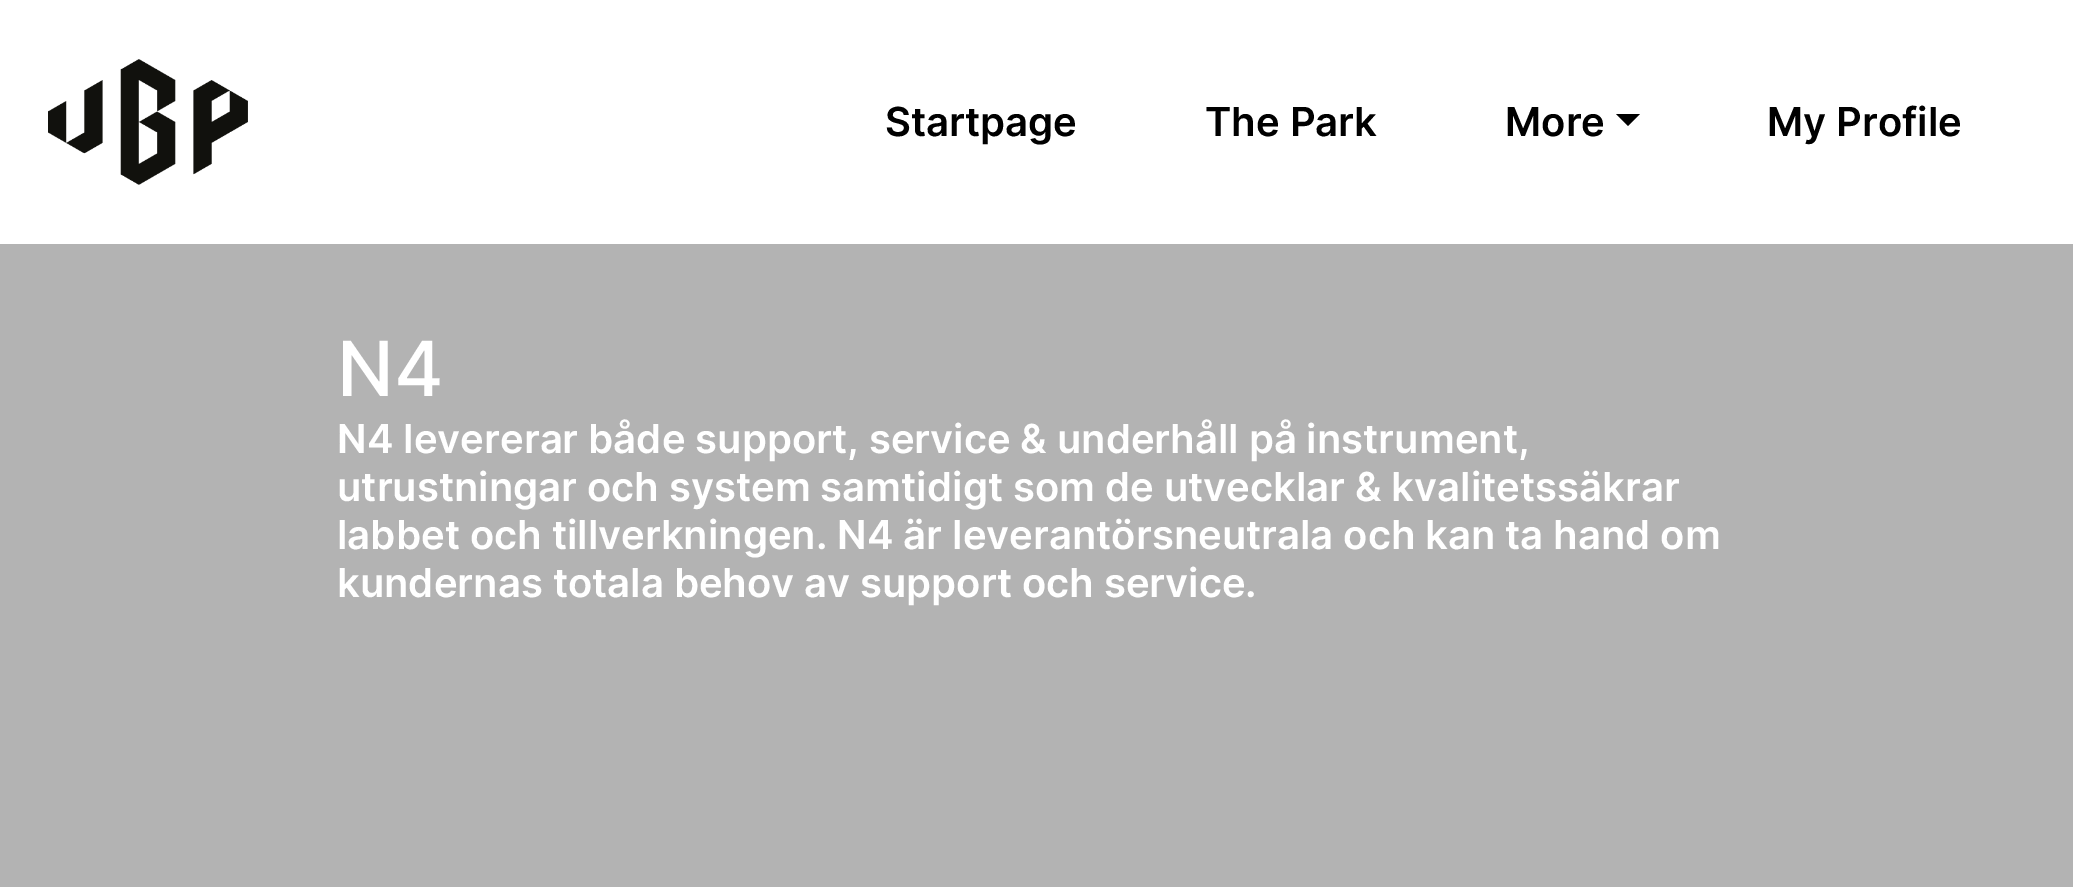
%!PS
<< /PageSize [2073 887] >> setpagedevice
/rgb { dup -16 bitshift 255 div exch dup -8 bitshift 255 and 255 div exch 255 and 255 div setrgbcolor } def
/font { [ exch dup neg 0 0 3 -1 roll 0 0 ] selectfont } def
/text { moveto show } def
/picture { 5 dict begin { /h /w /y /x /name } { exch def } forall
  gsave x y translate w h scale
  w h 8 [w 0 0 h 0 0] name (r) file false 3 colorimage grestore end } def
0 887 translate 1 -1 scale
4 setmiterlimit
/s1 { /Inter-SemiBold 40 font 16#000000 rgb } def
/s2 { /Inter-Medium 76 font 16#FFFFFF rgb } def
/s3 { /Inter-SemiBold 40 font 16#FFFFFF rgb } def
16#FFFFFF rgb
0 0 2073 887 rectfill
(pic1.raw) 48 59 200 126 picture
s1
(Startpage) 885 136 text
(The Park) 1205 136 text
(More) 1505 136 text
1616 114 moveto 1640 114 lineto 1628 126 lineto closepath fill
(My Profile) 1767 136 text
16#B3B3B3 rgb
0 244 2073 643 rectfill
s2
(N4) 337 396 text
s3
(N4 levererar både support, service & underhåll på instrument,) 337 453 text
(utrustningar och system samtidigt som de utvecklar & kvalitetssäkrar) 337 501 text
(labbet och tillverkningen. N4 är leverantörsneutrala och kan ta hand om) 337 549 text
(kundernas totala behov av support och service.) 337 597 text
showpage
